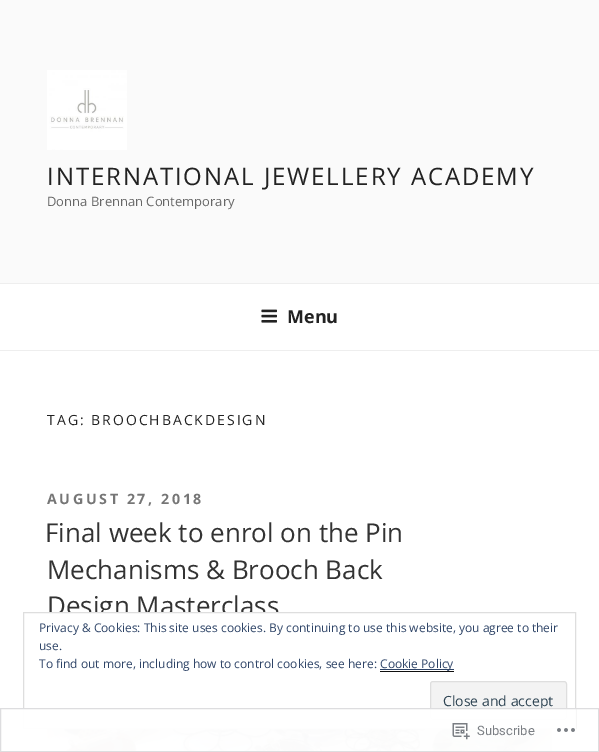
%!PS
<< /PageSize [599 752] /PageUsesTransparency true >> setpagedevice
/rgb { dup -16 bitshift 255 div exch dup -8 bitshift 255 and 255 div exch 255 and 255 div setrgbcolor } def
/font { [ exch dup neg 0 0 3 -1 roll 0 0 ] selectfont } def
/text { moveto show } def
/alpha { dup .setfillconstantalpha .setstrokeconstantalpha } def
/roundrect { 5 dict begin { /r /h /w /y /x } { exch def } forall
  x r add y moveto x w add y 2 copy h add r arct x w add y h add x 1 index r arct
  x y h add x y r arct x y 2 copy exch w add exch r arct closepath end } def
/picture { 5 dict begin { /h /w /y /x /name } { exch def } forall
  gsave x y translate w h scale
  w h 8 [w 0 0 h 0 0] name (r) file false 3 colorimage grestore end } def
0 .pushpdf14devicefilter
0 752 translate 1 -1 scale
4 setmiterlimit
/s1 { /OpenSans-Regular 13 font 16#666666 rgb } def
/s2 { /OpenSans-Bold 18 font 16#222222 rgb } def
/s3 { /OpenSans-Regular 26 font 16#333333 rgb } def
/s4 { /OpenSans-Regular 12 font 16#2E4467 rgb } def
/s5 { /OpenSans-Regular 14 font 16#2E4453 rgb } def
/s6 { /Roboto-Regular 13 font 16#7B7F84 rgb } def
16#FFFFFF rgb
0 0 599 752 rectfill
16#FAFAFA rgb
0 0 599 283 rectfill
(pic1.raw) 47 70 80 80 picture
/OpenSans-Regular 24 font
16#222222 rgb
47 185 moveto 1.9 0 (INTERNATIONAL JEWELLERY ACADEMY) ashow
s1
(Donna Brennan Contemporary) 47 206 text
16#EEEEEE rgb
0 283 599 1 rectfill
0 350 599 1 rectfill
(pic2.raw) 261 309 16 14 picture
s2
(Menu) 287 323 text
/OpenSans-Regular 14 font
47 425 moveto 2 0 (TAG: BROOCHBACKDESIGN) ashow
/OpenSans-Bold 14.25 font
16#767676 rgb
47 504 moveto 2.6 0 (AUGUST 27, 2018) ashow
s3
(Final week to enrol on the Pin) 45 542 text
(Mechanisms & Brooch Back) 47 579 text
(Design Masterclass) 47 615 text
(pic3.raw) 46 729 507 23 picture
16#FFFFFF rgb
49 613 229 9 rectfill
16#DEDEDE rgb
23.5 612.5 552 116 rectstroke
s4
(Privacy & Cookies: This site uses cookies. By continuing to use this website, you agree to their) 39 632 text
(use.) 39 650 text
(To find out more, including how to control cookies, see here:) 39 668 text
380 669 74 1 rectfill
(Cookie Policy) 380 668 text
16#0F0F0F rgb
380 671 74 1 rectfill
16#F3F3F3 rgb
430.5 681.5 136 38 2.5 roundrect gsave fill grestore
16#DEDEDE rgb
stroke
s5
(Close and accept) 443 706 text
0.98 alpha
16#FFFFFF rgb
23 708 553 44 rectfill
16#DCDCDE rgb
0.5 708.5 598 43 rectstroke
1 alpha
(pic4.raw) 452 723 18 17 picture
s6
(Subscribe) 477 735 text
(pic5.raw) 557 728 18 4 picture
.poppdf14devicefilter showpage
